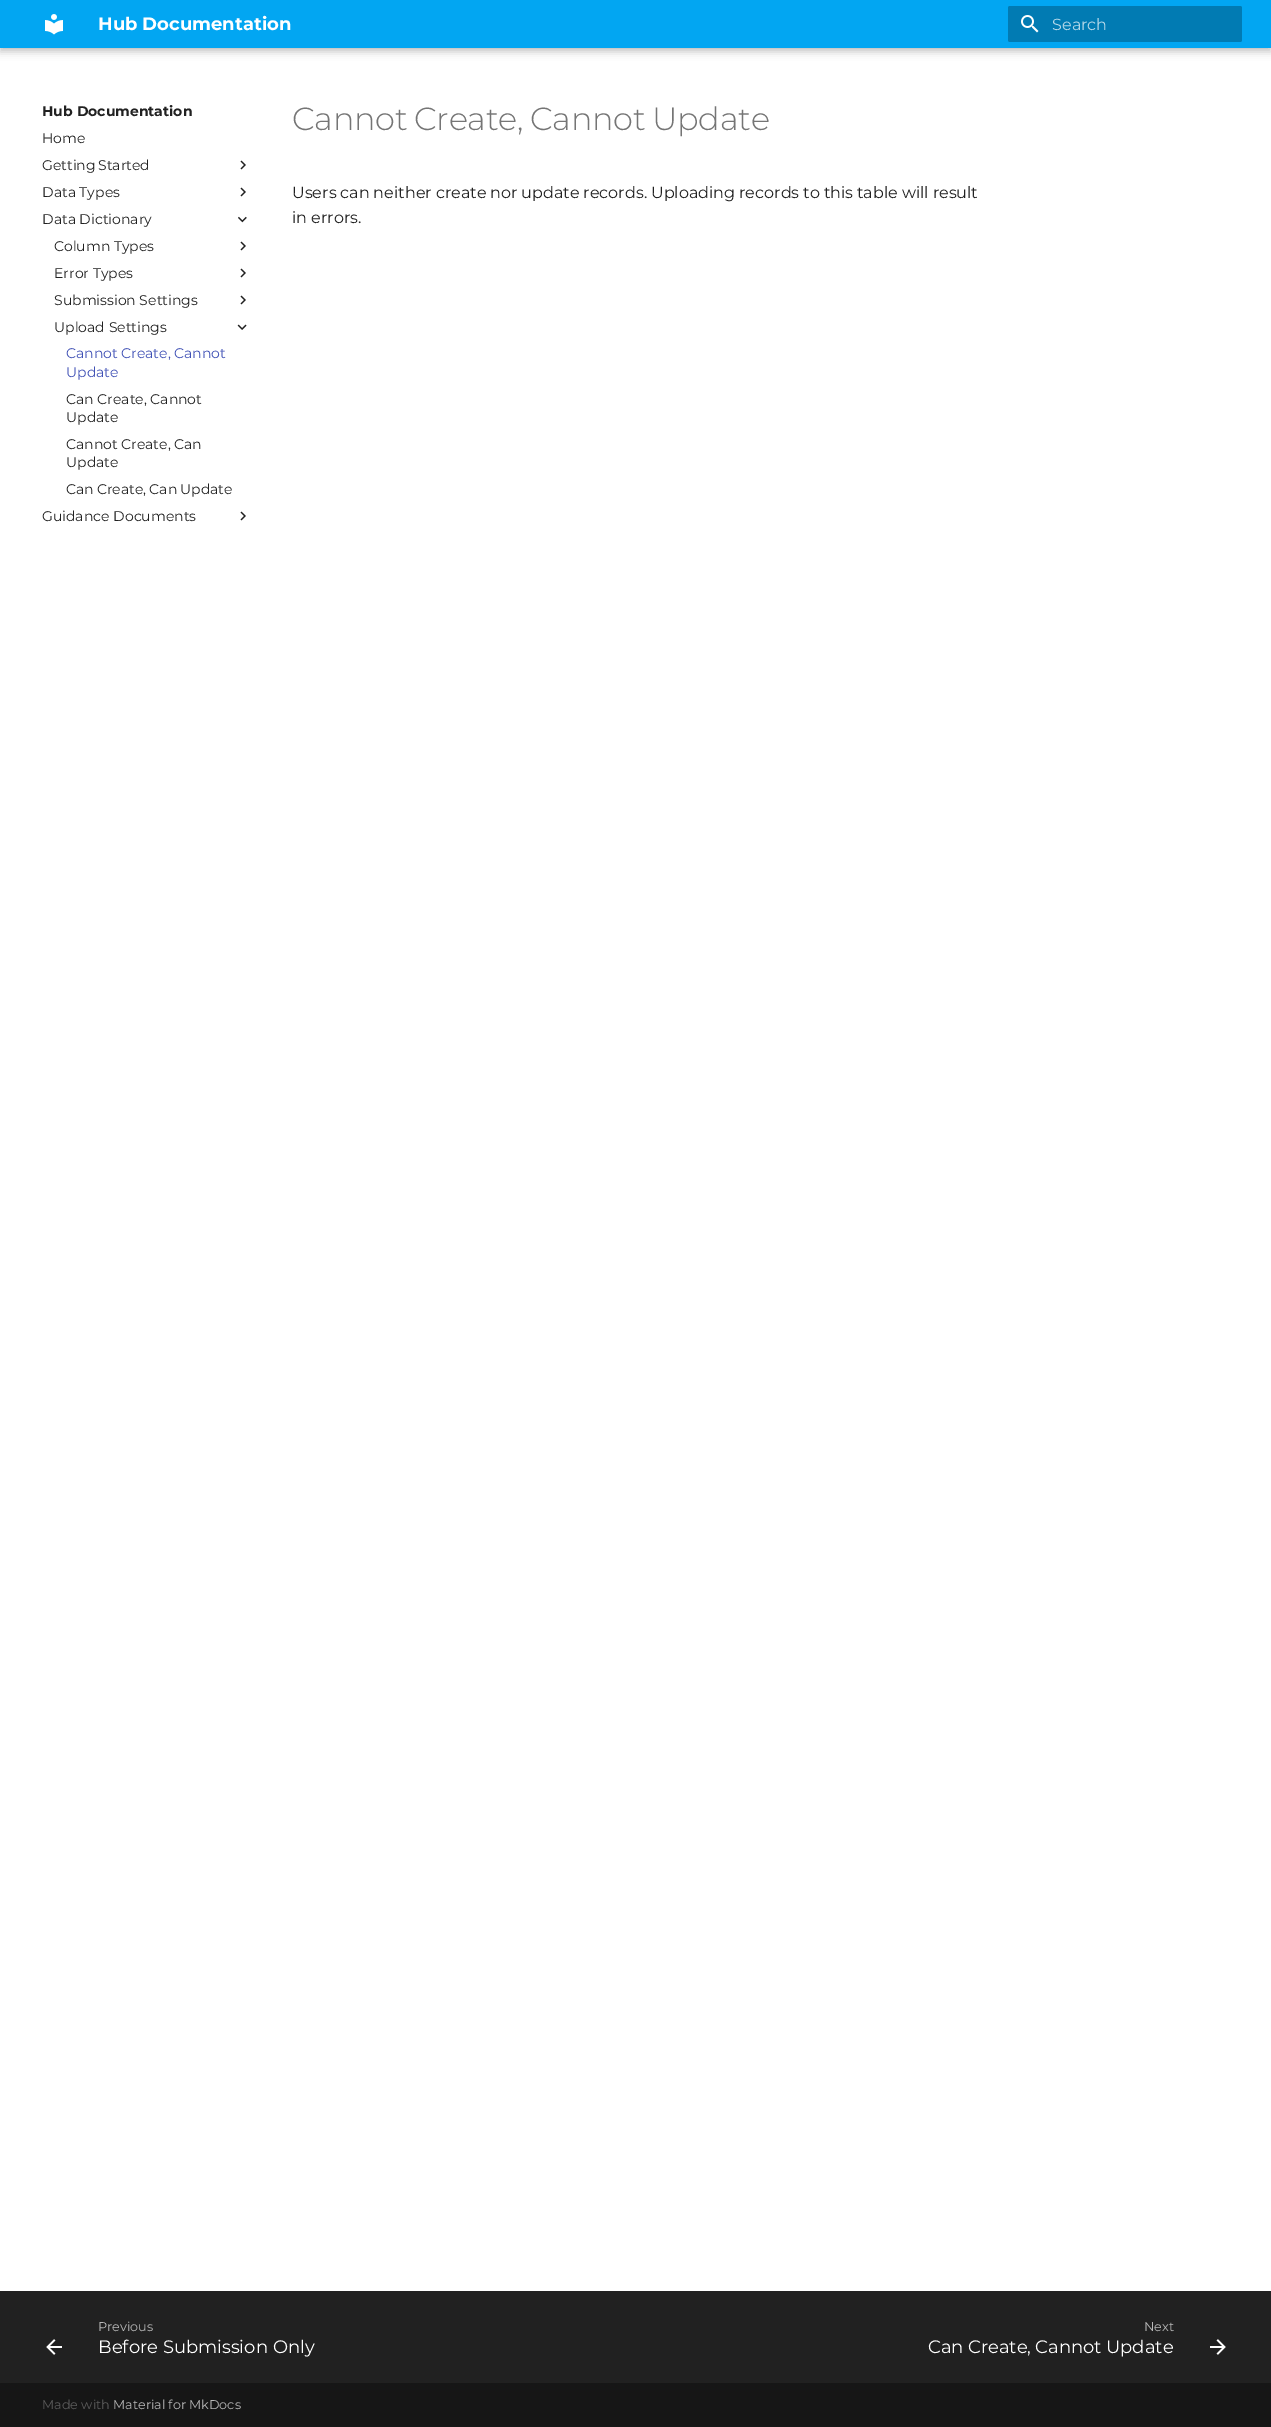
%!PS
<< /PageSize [1271 2427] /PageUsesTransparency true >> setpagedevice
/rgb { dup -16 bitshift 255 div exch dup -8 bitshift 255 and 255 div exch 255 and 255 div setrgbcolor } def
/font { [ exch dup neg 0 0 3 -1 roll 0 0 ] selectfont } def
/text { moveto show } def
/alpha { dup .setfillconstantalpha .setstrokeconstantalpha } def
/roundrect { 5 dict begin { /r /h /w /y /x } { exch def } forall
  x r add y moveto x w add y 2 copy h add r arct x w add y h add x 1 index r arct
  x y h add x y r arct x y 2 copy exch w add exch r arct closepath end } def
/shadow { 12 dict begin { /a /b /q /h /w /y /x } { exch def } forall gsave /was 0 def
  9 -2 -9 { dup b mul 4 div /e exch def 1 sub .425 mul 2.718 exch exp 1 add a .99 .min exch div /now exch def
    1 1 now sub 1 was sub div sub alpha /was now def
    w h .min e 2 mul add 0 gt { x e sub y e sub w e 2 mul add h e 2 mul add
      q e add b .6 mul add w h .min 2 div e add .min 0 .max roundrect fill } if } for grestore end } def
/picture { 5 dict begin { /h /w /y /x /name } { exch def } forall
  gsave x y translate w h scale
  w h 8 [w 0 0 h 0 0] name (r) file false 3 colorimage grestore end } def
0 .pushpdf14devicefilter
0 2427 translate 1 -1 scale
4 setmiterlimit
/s1 { /Montserrat-Bold 18 font 16#FFFFFF rgb } def
/s2 { /Montserrat-Regular 16 font 16#B3D7E8 rgb } def
/s3 { /Montserrat-Bold 14 font 16#212121 rgb } def
/s4 { /Montserrat-Regular 14 font 16#212121 rgb } def
/s5 { /Montserrat-Regular 14 font 16#4051B5 rgb } def
/s6 { /Montserrat-Regular 16 font 16#212121 rgb } def
/s7 { /Montserrat-Regular 12.75 font 16#B9B9B9 rgb } def
/s8 { /Montserrat-Regular 18 font 16#FFFFFF rgb } def
/s9 { /Montserrat-Regular 12.75 font 16#5C5C5C rgb } def
16#FFFFFF rgb
0 0 1271 2427 rectfill
16#000000 rgb
0 4 1271 48 0 4 0.2 shadow
0 0 1271 48 0 2 0.1 shadow
16#02A6F2 rgb
0 0 1271 48 rectfill
(pic1.raw) 45 14 18 21 picture
s1
(Hub Documentation) 98 30 text
16#017BB3 rgb
1008 6 234 36 2 roundrect fill
(pic2.raw) 1021 15 18 18 picture
s2
(Search) 1052 30 text
s3
(Hub Documentation) 42 116 text
s4
(Home) 42 143 text
42 170 moveto -1 0 32 (Getting Started) widthshow
(pic3.raw) 240 160 6 10 picture
(Data Types) 42 197 text
(pic3.raw) 240 187 6 10 picture
(Data Dictionary) 42 224 text
(pic4.raw) 238 216 9 7 picture
(Column Types) 54 251 text
(pic3.raw) 240 241 6 10 picture
(Error Types) 54 278 text
(pic3.raw) 240 268 6 10 picture
(Submission Settings) 54 305 text
(pic3.raw) 240 295 6 10 picture
(Upload Settings) 54 332 text
(pic5.raw) 237 324 10 6 picture
s5
(Cannot Create, Cannot) 66 358 text
(Update) 66 377 text
s4
(Can Create, Cannot) 66 404 text
(Update) 66 422 text
(Cannot Create, Can) 66 449 text
(Update) 66 467 text
66 494 moveto -0.5 0 32 (Can Create, Can Update) widthshow
(Guidance Documents) 42 521 text
(pic3.raw) 240 511 6 10 picture
/Montserrat-Light 32 font
16#757575 rgb
292 130 moveto -1 0 32 -0.3 0 (Cannot Create, Cannot Update) awidthshow
/Montserrat-Regular 16 font
16#212121 rgb
292 198 moveto -0.25 0 32 (Users can neither create nor update records. Uploading records to this table will result) widthshow
(in errors.) 292 223 text
0 2291 1271 92 rectfill
(pic6.raw) 46 2339 16 16 picture
s7
(Previous) 98 2331 text
s8
(Before Submission Only) 98 2353 text
s7
(Next) 1144 2331 text
/Montserrat-Regular 18 font
16#FFFFFF rgb
928 2353 moveto -0.5 0 32 (Can Create, Cannot Update) widthshow
(pic7.raw) 1210 2339 16 16 picture
16#161616 rgb
0 2383 1271 44 rectfill
s9
(Made with) 42 2409 text
s7
(Material for MkDocs) 113 2409 text
.poppdf14devicefilter showpage
